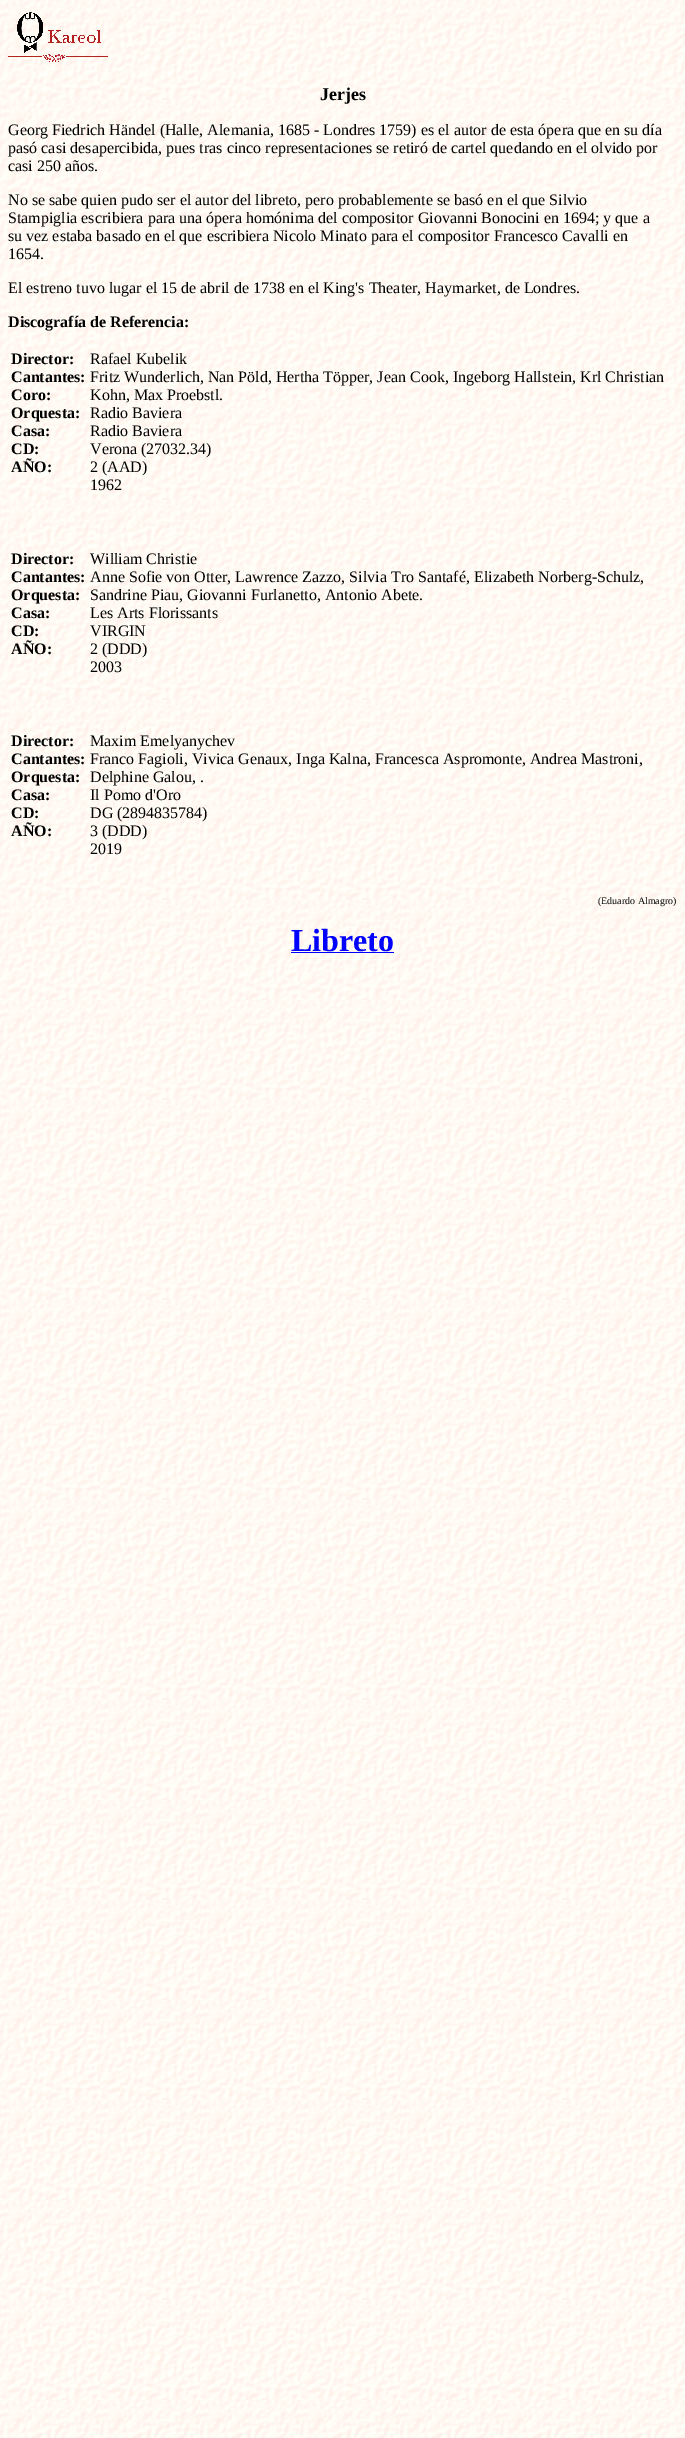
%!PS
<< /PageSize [685 2438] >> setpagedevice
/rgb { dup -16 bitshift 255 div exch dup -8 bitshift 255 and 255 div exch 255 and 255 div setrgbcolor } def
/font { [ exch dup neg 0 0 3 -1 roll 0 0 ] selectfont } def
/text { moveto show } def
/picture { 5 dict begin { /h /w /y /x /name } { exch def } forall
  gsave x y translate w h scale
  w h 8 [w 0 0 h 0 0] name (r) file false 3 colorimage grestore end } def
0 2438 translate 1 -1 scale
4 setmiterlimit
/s1 { /LiberationSerif-Bold 18 font 16#000000 rgb } def
/s2 { /LiberationSerif-Regular 16 font 16#000000 rgb } def
/s3 { /LiberationSerif-Bold 16 font 16#000000 rgb } def
/s4 { /LiberationSerif-Regular 10 font 16#000000 rgb } def
/s5 { /LiberationSerif-Bold 32 font 16#0000FF rgb } def
16#FFFFFF rgb
0 0 685 2438 rectfill
(pic1.raw) 0 0 685 2438 picture
(pic2.raw) 8 12 100 50 picture
s1
(Jerjes) 320 100 text
s2
(Georg Fiedrich Händel \(Halle, Alemania, 1685 - Londres 1759\) es el autor de esta ópera que en su día) 8 135 text
(pasó casi desapercibida, pues tras cinco representaciones se retiró de cartel quedando en el olvido por) 8 153 text
(casi 250 años.) 8 171 text
(No se sabe quien pudo ser el autor del libreto, pero probablemente se basó en el que Silvio) 8 205 text
(Stampiglia escribiera para una ópera homónima del compositor Giovanni Bonocini en 1694; y que a) 8 223 text
(su vez estaba basado en el que escribiera Nicolo Minato para el compositor Francesco Cavalli en) 8 241 text
(1654.) 8 259 text
(El estreno tuvo lugar el 15 de abril de 1738 en el King's Theater, Haymarket, de Londres.) 8 293 text
s3
(Discografía de Referencia:) 8 327 text
(Director:) 11 364 text
(Cantantes:) 11 382 text
(Coro:) 11 400 text
(Orquesta:) 11 418 text
(Casa:) 11 436 text
(CD:) 11 454 text
(AÑO:) 11 472 text
s2
(Rafael Kubelik) 90 364 text
(Fritz Wunderlich, Nan Pöld, Hertha Töpper, Jean Cook, Ingeborg Hallstein, Krl Christian) 90 382 text
(Kohn, Max Proebstl.) 90 400 text
(Radio Baviera) 90 418 text
(Radio Baviera) 90 436 text
(Verona \(27032.34\)) 90 454 text
(2 \(AAD\)) 90 472 text
(1962) 90 490 text
s3
(Director:) 11 564 text
(Cantantes:) 11 582 text
(Orquesta:) 11 600 text
(Casa:) 11 618 text
(CD:) 11 636 text
(AÑO:) 11 654 text
s2
(William Christie) 90 564 text
(Anne Sofie von Otter, Lawrence Zazzo, Silvia Tro Santafé, Elizabeth Norberg-Schulz,) 90 582 text
(Sandrine Piau, Giovanni Furlanetto, Antonio Abete.) 90 600 text
(Les Arts Florissants) 90 618 text
(VIRGIN) 90 636 text
(2 \(DDD\)) 90 654 text
(2003) 90 672 text
s3
(Director:) 11 746 text
(Cantantes:) 11 764 text
(Orquesta:) 11 782 text
(Casa:) 11 800 text
(CD:) 11 818 text
(AÑO:) 11 836 text
s2
(Maxim Emelyanychev) 90 746 text
(Franco Fagioli, Vivica Genaux, Inga Kalna, Francesca Aspromonte, Andrea Mastroni,) 90 764 text
(Delphine Galou, .) 90 782 text
(Il Pomo d'Oro) 90 800 text
(DG \(2894835784\)) 90 818 text
(3 \(DDD\)) 90 836 text
(2019) 90 854 text
s4
(\(Eduardo Almagro\)) 598 904 text
s5
(Libreto) 291 951 text
291 952 103 1 rectfill
showpage
